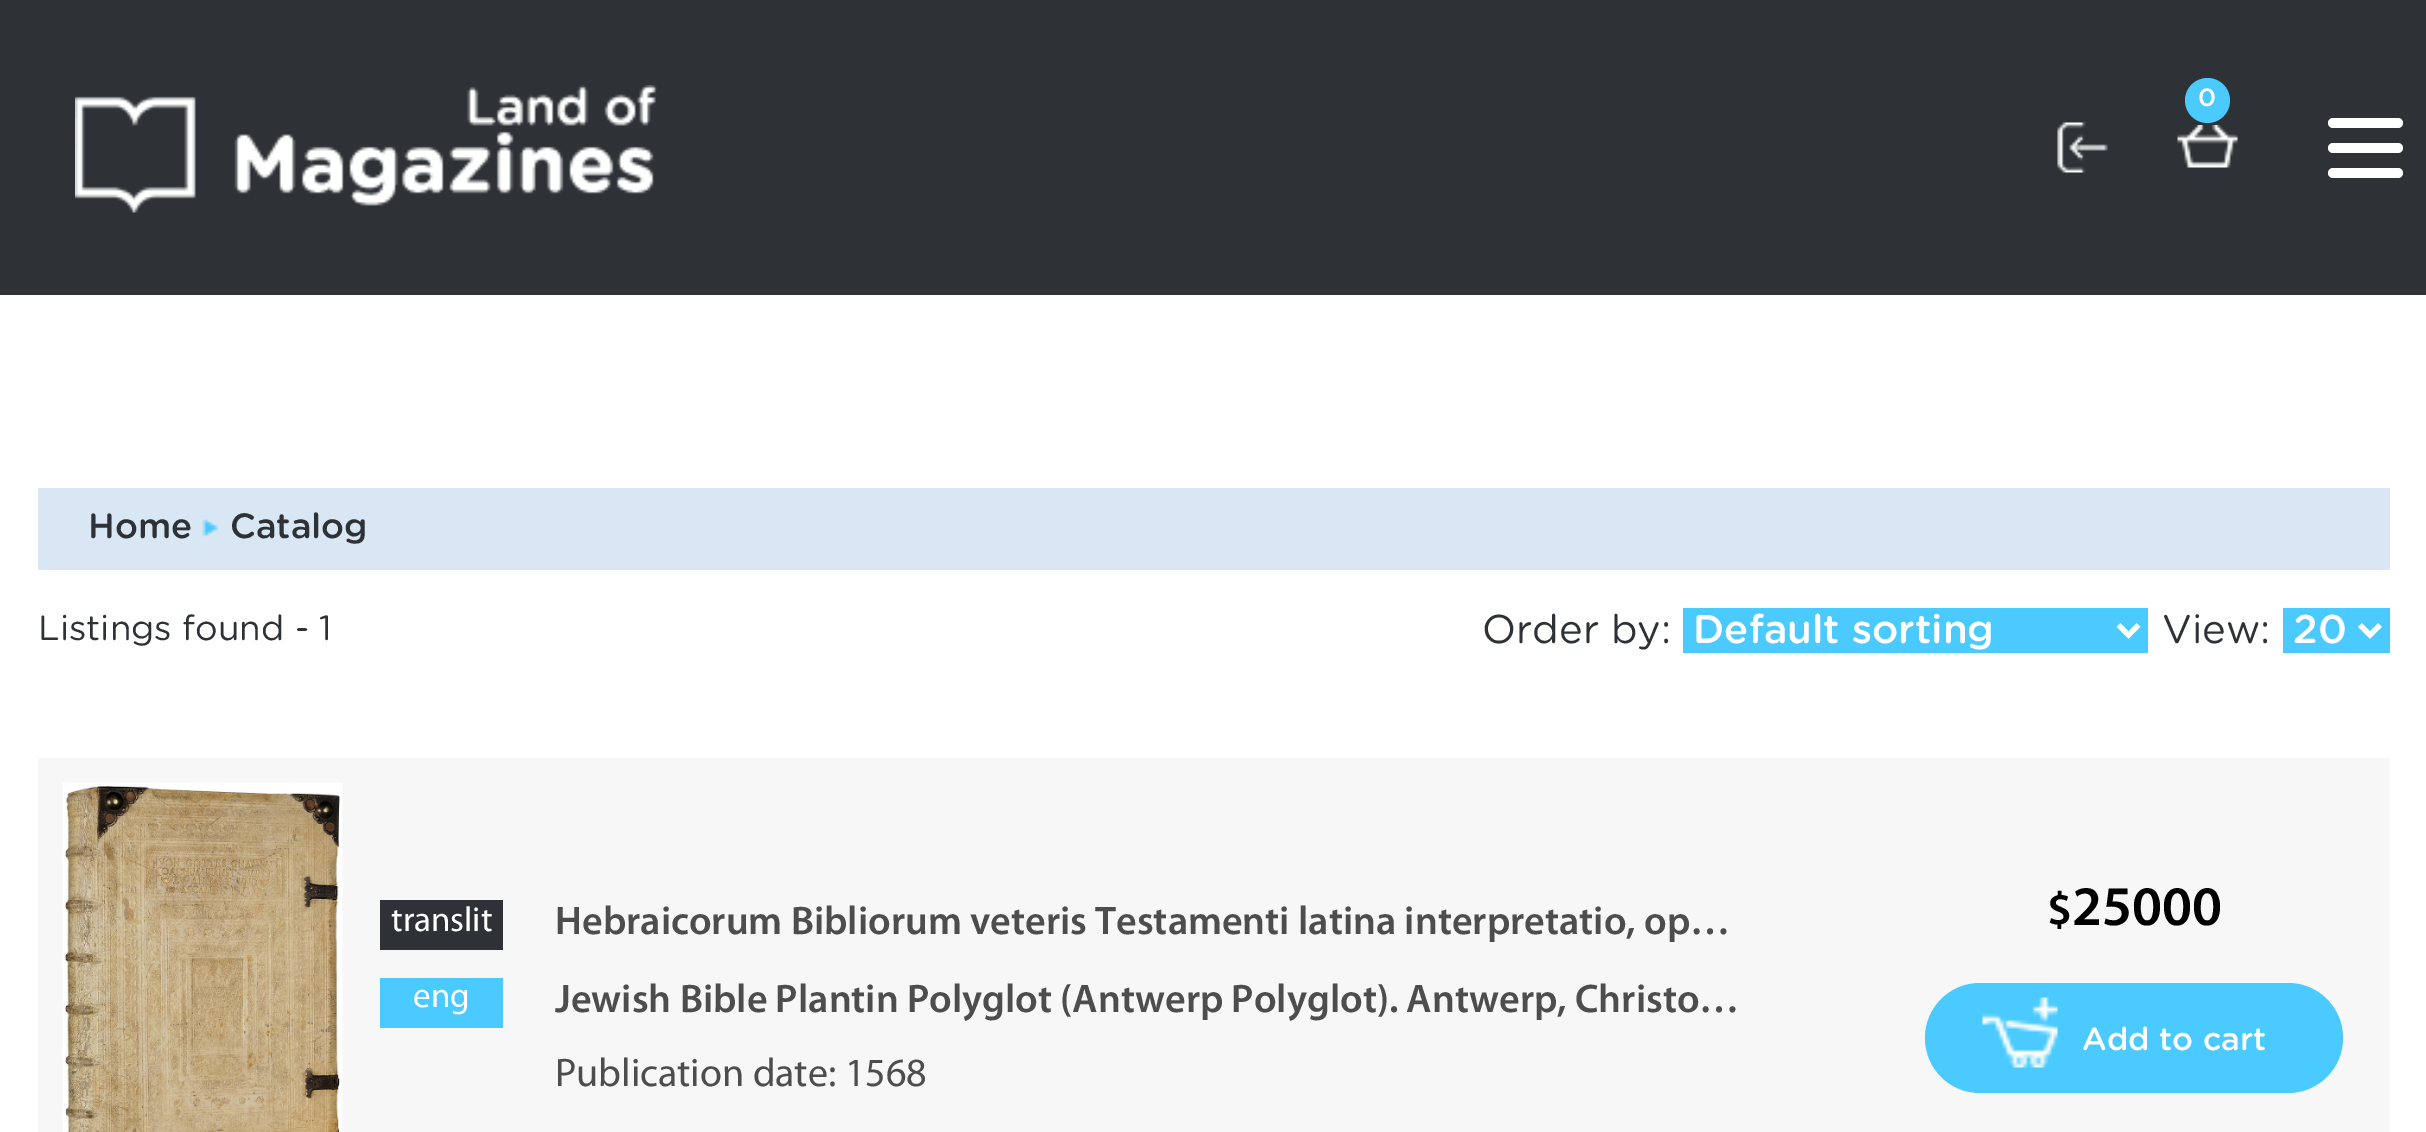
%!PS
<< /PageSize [2426 1132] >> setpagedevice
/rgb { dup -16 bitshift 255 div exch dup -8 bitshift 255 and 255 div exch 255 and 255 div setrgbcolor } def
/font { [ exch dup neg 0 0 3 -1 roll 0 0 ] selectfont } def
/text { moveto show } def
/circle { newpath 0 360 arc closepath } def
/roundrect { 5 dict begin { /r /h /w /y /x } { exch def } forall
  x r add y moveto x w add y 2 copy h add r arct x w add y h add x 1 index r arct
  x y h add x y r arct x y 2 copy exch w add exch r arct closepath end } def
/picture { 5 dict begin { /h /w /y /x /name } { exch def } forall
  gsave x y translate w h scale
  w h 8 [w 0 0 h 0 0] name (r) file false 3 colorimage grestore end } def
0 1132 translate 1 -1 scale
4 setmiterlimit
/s1 { /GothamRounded-Medium 25 font 16#FFFFFF rgb } def
/s2 { /GothamRounded-Medium 35 font 16#2E3236 rgb } def
/s3 { /GothamRounded-Regular 35 font 16#2E3236 rgb } def
/s4 { /GothamRounded-Regular 40.05 font 16#2E3236 rgb } def
/s5 { /GothamRounded-Medium 40.05 font 16#FFFFFF rgb } def
/s6 { /Myriad-Regular 35 font 16#FFFFFF rgb } def
/s7 { /Myriad-SemiBold 40.05 font 16#4D4D4D rgb } def
/s8 { /Myriad-Regular 40.05 font 16#4D4D4D rgb } def
/s9 { /Myriad-SemiBold 47 font 16#000000 rgb } def
/s10 { /Myriad-SemiBold 56 font 16#000000 rgb } def
/s11 { /GothamRounded-Medium 32 font 16#FFFFFF rgb } def
16#FFFFFF rgb
0 0 2426 1132 rectfill
16#2E3236 rgb
0 0 2426 295 rectfill
(pic1.raw) 75 85 583 128 picture
16#4ACAFF rgb
2207.5 100.5 22.5 circle fill
s1
(0) 2198 106 text
(pic2.raw) 2177 125 61 43 picture
(pic3.raw) 2057 122 51 51 picture
2328 118 75 10 5 roundrect fill
2328 143 75 10 5 roundrect fill
2328 168 75 10 5 roundrect fill
16#D9E7F4 rgb
38 488 2352 82 rectfill
s2
(Home) 88 538 text
(pic4.raw) 202 519 18 19 picture
(Catalog) 230 538 text
s3
(Listings found - 1) 38 640 text
s4
(Order by:) 1482 643 text
16#4ACAFF rgb
1683 608 465 45 rectfill
16#FFFFFF rgb
5 setlinewidth
2118.5 625 moveto 2128.5 635 lineto 2138.5 625 lineto stroke
s5
(Default sorting) 1693 643 text
s4
(View:) 2162 643 text
16#4ACAFF rgb
2283 608 107 45 rectfill
16#FFFFFF rgb
2360 625 moveto 2370 635 lineto 2380 625 lineto stroke
s5
(20) 2293 643 text
16#F7F7F7 rgb
38 758 2352 374 rectfill
(pic5.raw) 62 782 281 350 picture
16#2E3236 rgb
380 900 123 50 rectfill
s6
(translit) 391 931 text
s7
(Hebraicorum Bibliorum veteris Testamenti latina interpretatio, op…) 555 934 text
16#4ACAFF rgb
380 978 123 50 rectfill
s6
(eng) 413 1007 text
s7
(Jewish Bible Plantin Polyglot \(Antwerp Polyglot\). Antwerp, Christo…) 555 1012 text
s8
(Publication date: 1568) 555 1086 text
s9
($) 2047 925 text
s10
(25000) 2072 925 text
16#4ACAFF rgb
1925 983 418 110 55 roundrect fill
(pic6.raw) 1982 997 76 71 picture
s11
(Add to cart) 2082 1050 text
showpage
